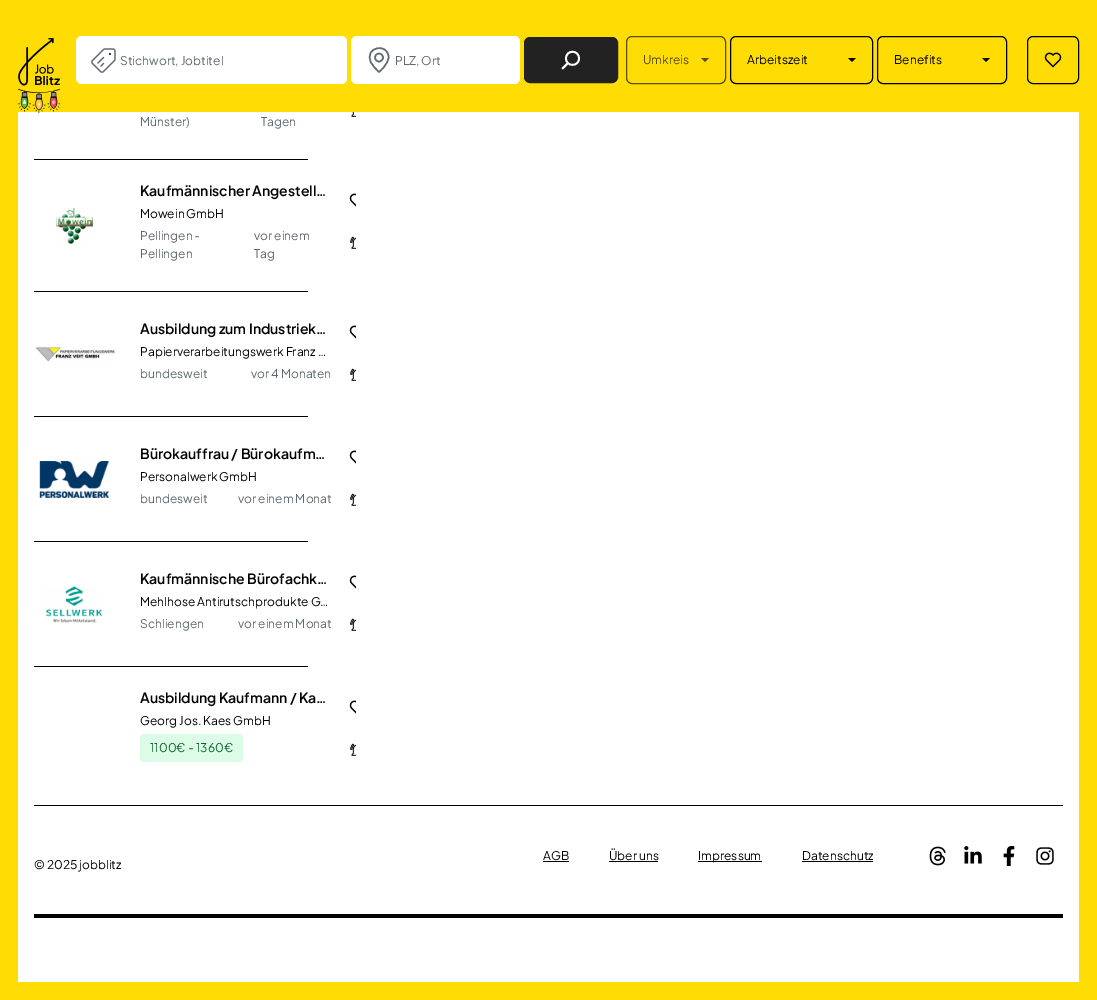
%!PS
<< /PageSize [1097 1000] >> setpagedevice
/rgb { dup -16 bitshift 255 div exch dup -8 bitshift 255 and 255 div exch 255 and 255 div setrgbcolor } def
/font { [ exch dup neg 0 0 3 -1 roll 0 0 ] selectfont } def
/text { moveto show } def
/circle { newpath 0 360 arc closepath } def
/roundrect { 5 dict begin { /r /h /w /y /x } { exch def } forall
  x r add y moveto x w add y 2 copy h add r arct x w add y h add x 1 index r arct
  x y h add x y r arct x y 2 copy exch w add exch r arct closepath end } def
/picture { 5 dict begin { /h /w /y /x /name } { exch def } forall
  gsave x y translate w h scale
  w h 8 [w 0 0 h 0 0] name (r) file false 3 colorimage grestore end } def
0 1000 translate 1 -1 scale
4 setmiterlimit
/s1 { /PlusJakartaSans-Regular 12 font 16#5F6A6F rgb } def
/s2 { /PlusJakartaSans-Regular 12 font 16#594D01 rgb } def
/s3 { /PlusJakartaSans-Regular 12 font 16#000000 rgb } def
/s4 { /PlusJakartaSans-SemiBold 14 font 16#000000 rgb } def
/s5 { /PlusJakartaSans-Regular 12 font 16#0A652C rgb } def
16#FFDD04 rgb
0 0 1097 1000 rectfill
16#FFFFFF rgb
18 112 1061 870 rectfill
(pic1.raw) 18 38 42 75 picture
76 36 271 48 6 roundrect fill
104 36 243 48 6 roundrect fill
(pic2.raw) 91 48 25 25 picture
s1
(Stichwort, Jobtitel) 120 65 text
16#FFFFFF rgb
351 36 169 48 6 roundrect fill
379 36 141 48 6 roundrect fill
16#5F6A6F rgb
1.5 setlinewidth
379 57.5 4 circle stroke
1 setlinecap
1 setlinejoin
388.5 57 moveto 388.5 64.5 379 72 379 72 curveto 376 69.5 373 66 371 62.5 curveto 363.5 46.5 388.5 42.5 388.5 57 curveto closepath stroke
(PLZ, Ort) 395 65 text
16#222222 rgb
524.5 37.5 93 45 5.5 roundrect gsave fill grestore
1 setlinewidth
0 setlinecap
0 setlinejoin
stroke
16#FFFFFF rgb
1.8 setlinewidth
1 setlinecap
1 setlinejoin
562.5 68.5 moveto 568 63 lineto 579 58.5 moveto 579 67 566 67 566 58.5 curveto 566 49.5 579 49.5 579 58.5 curveto closepath stroke
16#594D01 rgb
1 setlinewidth
0 setlinecap
0 setlinejoin
626.5 36.5 99 47 5.5 roundrect stroke
(Umkreis) 643 64 text
701 58 moveto 709 58 lineto 705 62 lineto closepath fill
16#000000 rgb
730.5 36.5 142 47 5.5 roundrect stroke
(Arbeitszeit) 747 64 text
848 58 moveto 856 58 lineto 852 62 lineto closepath fill
877.5 36.5 129 47 5.5 roundrect stroke
(Benefits) 894 64 text
982 58 moveto 990 58 lineto 986 62 lineto closepath fill
1027.5 36.5 51 47 5.5 roundrect stroke
(pic3.raw) 1044 52 18 16 picture
34 159 274 1 rectfill
(pic4.raw) 351 112 5 5 picture
s1
(Münster\)) 140 126 text
(Tagen) 261 126 text
16#000000 rgb
34 291 274 1 rectfill
(pic5.raw) 56 208 37 36 picture
s4
(Kaufmännischer Angestell…) 140 196 text
s3
(Mowein GmbH) 140 218 text
s1
(Pellingen -) 140 240 text
(Pellingen) 140 258 text
(vor einem) 254 240 text
(Tag) 254 258 text
(pic6.raw) 349 193 7 14 picture
(pic7.raw) 350 236 6 13 picture
16#000000 rgb
34 416 274 1 rectfill
(pic8.raw) 35 346 81 16 picture
s4
(Ausbildung zum Industriek…) 140 334 text
s3
(Papierverarbeitungswerk Franz …) 140 356 text
s1
(bundesweit) 140 378 text
(vor 4 Monaten) 251 378 text
(pic6.raw) 349 325 7 14 picture
(pic7.raw) 350 368 6 13 picture
16#000000 rgb
34 541 274 1 rectfill
(pic9.raw) 39 461 70 37 picture
s4
(Bürokauffrau / Bürokaufm…) 140 459 text
s3
(Personalwerk GmbH) 140 481 text
s1
(bundesweit) 140 503 text
(vor einem Monat) 238 503 text
(pic6.raw) 349 450 7 14 picture
(pic7.raw) 350 493 6 13 picture
16#000000 rgb
34 666 274 1 rectfill
(pic10.raw) 45 586 58 37 picture
s4
(Kaufmännische Bürofachk…) 140 584 text
s3
(Mehlhose Antirutschprodukte G…) 140 606 text
s1
(Schliengen) 140 628 text
(vor einem Monat) 238 628 text
(pic6.raw) 349 575 7 14 picture
(pic7.raw) 350 618 6 13 picture
s4
(Ausbildung Kaufmann / Ka…) 140 703 text
s3
(Georg Jos. Kaes GmbH) 140 725 text
16#DCFCE7 rgb
140 734 103 28 4 roundrect fill
s5
(1100€ - 1360€) 150 752 text
(pic6.raw) 349 700 7 14 picture
(pic7.raw) 350 743 6 13 picture
16#000000 rgb
34 805 1029 1 rectfill
34 914 1029 4 rectfill
(AGB) 543 860 text
543 861 26 1 rectfill
(Über uns) 609 860 text
609 861 49 1 rectfill
698 861 64 1 rectfill
(Impressum) 698 860 text
(Datenschutz) 802 860 text
802 861 71 1 rectfill
(pic11.raw) 929 846 17 20 picture
(pic12.raw) 964 846 18 18 picture
(pic13.raw) 1003 846 12 20 picture
(pic14.raw) 1036 847 18 18 picture
(© 2025 jobblitz) 34 869 text
showpage
